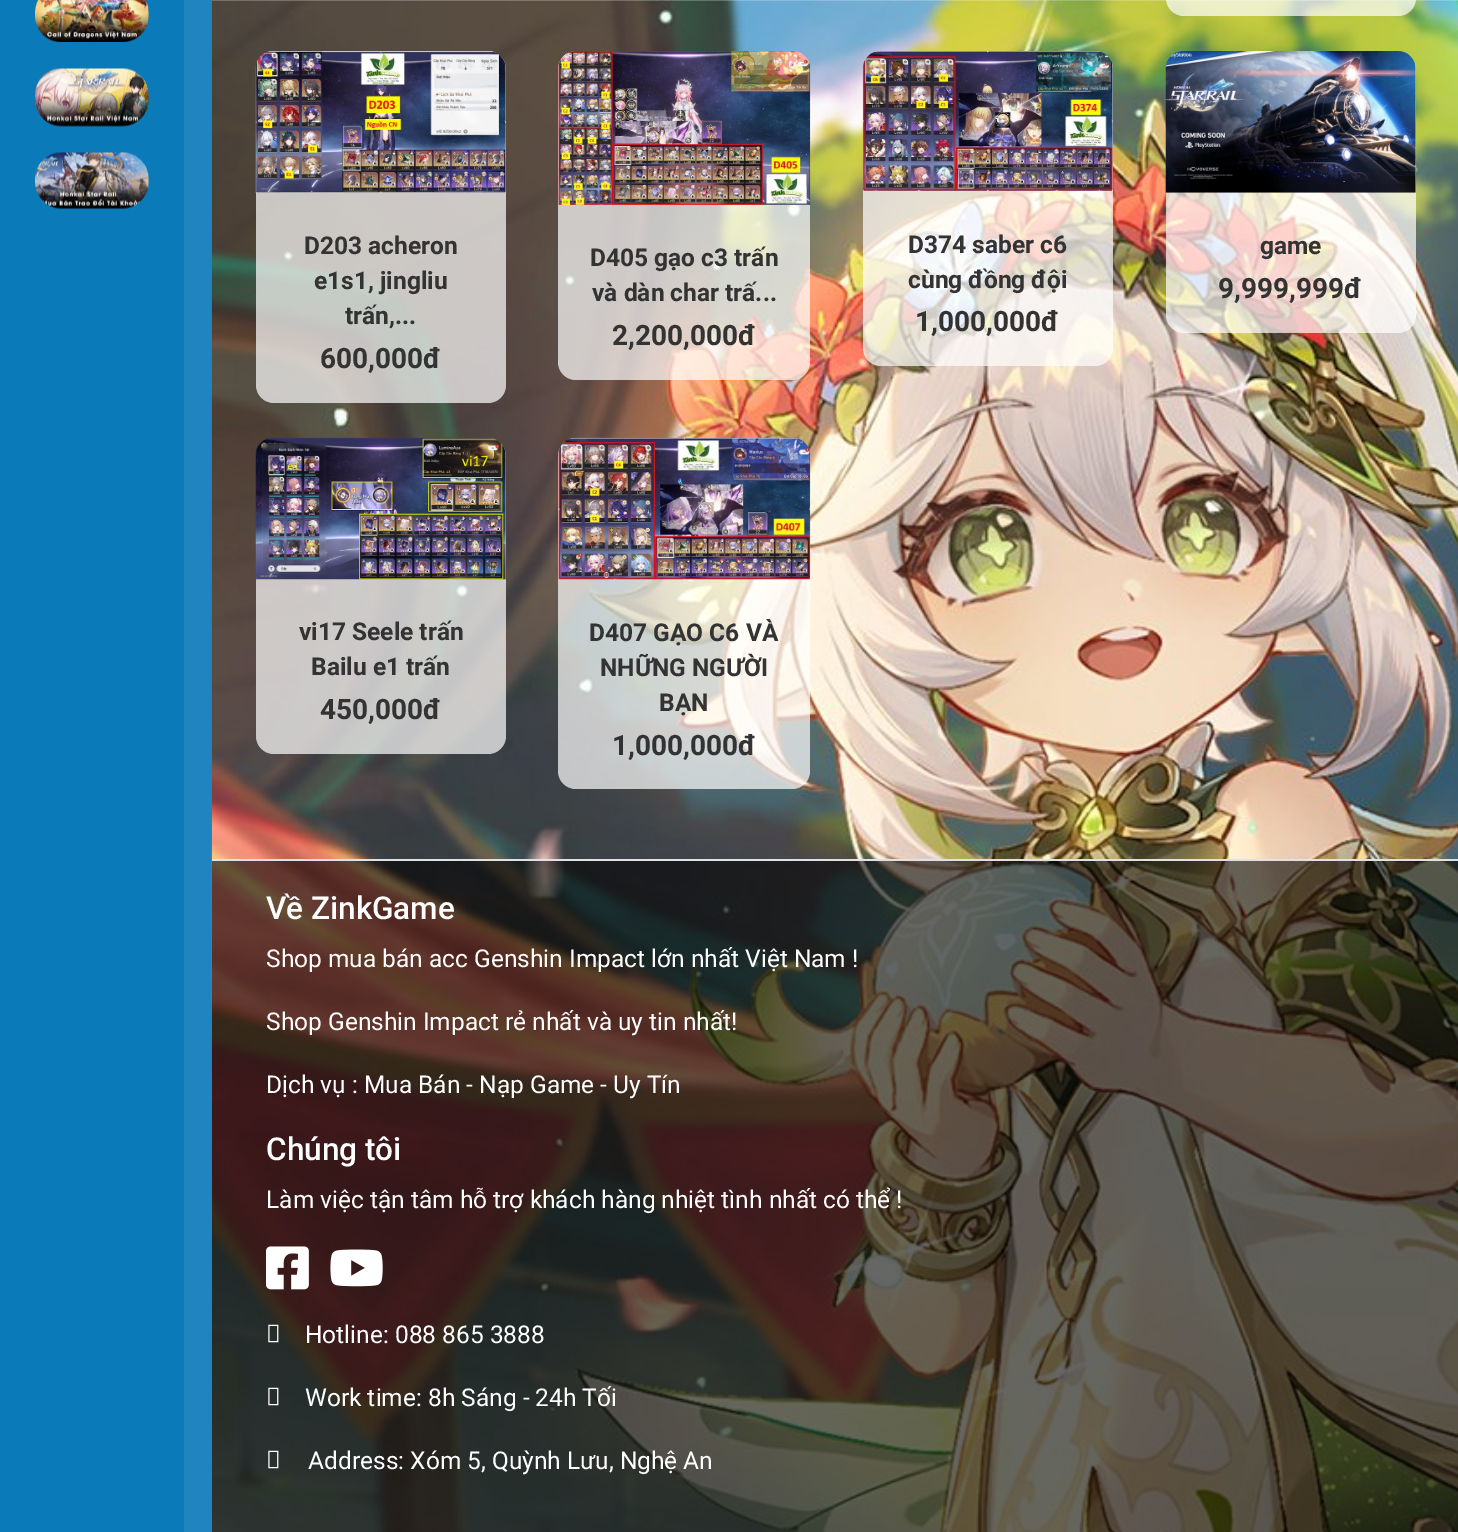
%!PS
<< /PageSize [1458 1532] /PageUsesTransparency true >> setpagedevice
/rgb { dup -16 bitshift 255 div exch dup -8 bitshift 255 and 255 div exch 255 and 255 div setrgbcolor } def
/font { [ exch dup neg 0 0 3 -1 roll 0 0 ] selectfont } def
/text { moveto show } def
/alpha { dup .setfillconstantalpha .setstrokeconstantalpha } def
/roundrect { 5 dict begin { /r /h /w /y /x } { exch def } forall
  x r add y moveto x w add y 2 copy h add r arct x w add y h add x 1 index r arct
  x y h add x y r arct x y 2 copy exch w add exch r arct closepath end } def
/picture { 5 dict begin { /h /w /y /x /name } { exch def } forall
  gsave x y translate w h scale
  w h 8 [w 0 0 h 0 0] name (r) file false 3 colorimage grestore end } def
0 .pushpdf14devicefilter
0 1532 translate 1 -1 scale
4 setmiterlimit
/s1 { /Roboto-Bold 24.5 font 16#333333 rgb } def
/s2 { /Roboto-Bold 28 font 16#333333 rgb } def
/s3 { /Roboto-Medium 31.5 font 16#FFFFFF rgb } def
/s4 { /Roboto-Regular 24.5 font 16#FFFFFF rgb } def
16#0A7AB9 rgb
0 0 1458 1532 rectfill
(pic1.raw) 35 0 114 42 picture
(pic2.raw) 35 68 114 59 picture
(pic3.raw) 35 152 114 57 picture
16#1F84BF rgb
184 0 1248 1532 rectfill
(pic4.raw) 211 0 1247 1532 picture
0.7 alpha
16#FFFFFF rgb
1166 -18 250 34 18 roundrect fill
256 51 250 352 18 roundrect fill
1 alpha
(pic5.raw) 255 51 251 142 picture
s1
(D203 acheron) 304 254 text
(e1s1, jingliu) 314 289 text
(trấn,...) 345 324 text
s2
(600,000đ) 320 368 text
0.7 alpha
16#FFFFFF rgb
558 51 252 329 18 roundrect fill
1 alpha
(pic6.raw) 558 51 253 154 picture
s1
(D405 gạo c3 trấn) 590 266 text
(và dàn char trấ...) 592 301 text
s2
(2,200,000đ) 612 345 text
0.7 alpha
16#FFFFFF rgb
863 51 250 315 18 roundrect fill
1 alpha
(pic7.raw) 862 51 251 140 picture
s1
(D374 saber c6) 908 253 text
(cùng đồng đội) 908 288 text
s2
(1,000,000đ) 915 331 text
0.7 alpha
16#FFFFFF rgb
1166 51 250 282 18 roundrect fill
1 alpha
(pic8.raw) 1165 51 251 142 picture
s1
(game) 1260 254 text
s2
(9,999,999đ) 1218 298 text
0.7 alpha
16#FFFFFF rgb
256 438 250 316 18 roundrect fill
1 alpha
(pic9.raw) 255 437 251 143 picture
s1
(vi17 Seele trấn) 299 640 text
(Bailu e1 trấn) 311 675 text
s2
(450,000đ) 320 719 text
0.7 alpha
16#FFFFFF rgb
558 438 252 351 18 roundrect fill
1 alpha
(pic10.raw) 558 437 253 143 picture
s1
(D407 GẠO C6 VÀ) 589 641 text
(NHỮNG NGƯỜI) 600 676 text
(BẠN) 659 711 text
s2
(1,000,000đ) 612 755 text
0.6 alpha
16#000000 rgb
212 861 1246 671 rectfill
1 alpha
16#DEE2E6 rgb
212 859 1246 2 rectfill
s3
(Về ZinkGame) 266 919 text
s4
(Shop mua bán acc Genshin Impact lớn nhất Việt Nam !) 266 967 text
(Shop Genshin Impact rẻ nhất và uy tin nhất!) 266 1030 text
(Dịch vụ : Mua Bán - Nạp Game - Uy Tín) 266 1093 text
s3
(Chúng tôi) 266 1160 text
s4
(Làm việc tận tâm hỗ trợ khách hàng nhiệt tình nhất có thể !) 266 1208 text
(pic11.raw) 266 1246 43 44 picture
(pic12.raw) 330 1249 53 38 picture
(pic13.raw) 268 1324 11 19 picture
(Hotline: 088 865 3888) 305 1343 text
(pic14.raw) 268 1387 11 19 picture
(Work time: 8h Sáng - 24h Tối) 305 1406 text
(pic15.raw) 268 1450 11 19 picture
(Address: Xóm 5, Quỳnh Lưu, Nghệ An) 308 1469 text
.poppdf14devicefilter showpage
